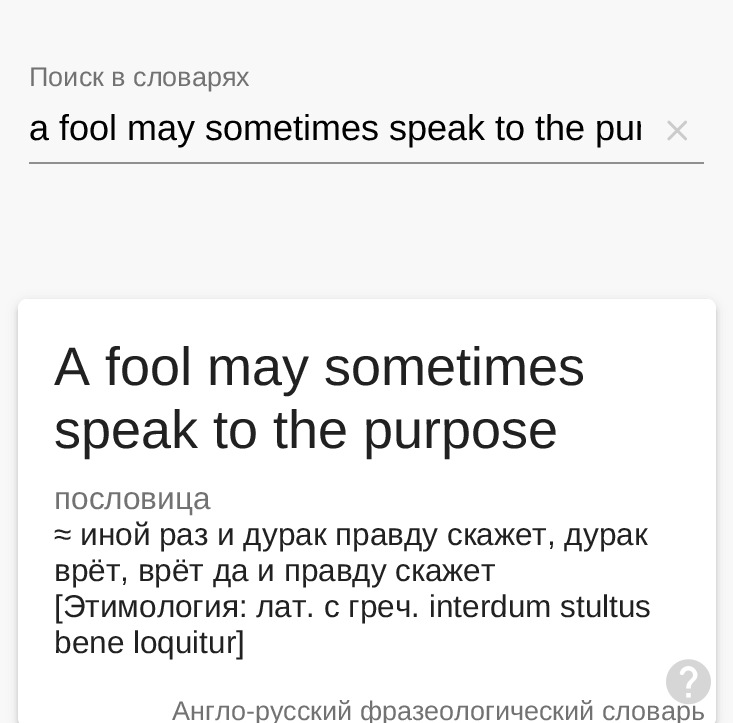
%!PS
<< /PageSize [733 723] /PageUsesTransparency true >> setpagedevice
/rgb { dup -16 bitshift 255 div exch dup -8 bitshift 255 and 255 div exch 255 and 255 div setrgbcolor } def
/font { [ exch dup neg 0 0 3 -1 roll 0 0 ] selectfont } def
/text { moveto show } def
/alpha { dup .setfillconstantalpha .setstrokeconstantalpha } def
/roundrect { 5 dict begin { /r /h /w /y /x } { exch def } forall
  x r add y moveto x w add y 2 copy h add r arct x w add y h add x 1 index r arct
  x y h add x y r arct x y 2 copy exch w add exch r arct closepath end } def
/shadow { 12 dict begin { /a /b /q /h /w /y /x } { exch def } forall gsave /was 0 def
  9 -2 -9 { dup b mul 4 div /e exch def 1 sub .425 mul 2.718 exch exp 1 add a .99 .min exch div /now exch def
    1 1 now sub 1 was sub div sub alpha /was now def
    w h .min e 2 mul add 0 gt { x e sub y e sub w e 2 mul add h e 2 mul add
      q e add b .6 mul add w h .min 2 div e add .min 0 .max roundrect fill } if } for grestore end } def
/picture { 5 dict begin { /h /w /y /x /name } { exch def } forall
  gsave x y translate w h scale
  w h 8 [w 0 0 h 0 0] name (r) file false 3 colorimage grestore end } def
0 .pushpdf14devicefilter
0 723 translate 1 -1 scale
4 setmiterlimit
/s1 { /LiberationSans-Regular 27 font 16#727272 rgb } def
/s2 { /LiberationSans-Regular 36 font 16#000000 rgb } def
/s3 { /LiberationSans-Regular 54 font 16#212121 rgb } def
/s4 { /LiberationSans-Regular 31.5 font 16#727272 rgb } def
/s5 { /LiberationSans-Regular 31.5 font 16#212121 rgb } def
16#F8F8F8 rgb
0 0 733 723 rectfill
s1
(Поиск в словарях) 29 86 text
gsave
29 108 612 41 rectclip
s2
(a fool may sometimes speak to the pur) 29 140 text
grestore
(pic1.raw) 667 120 20 21 picture
16#909090 rgb
29 162 675 2 rectfill
16#000000 rgb
18 302 698 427 9 5.5 0.12 shadow
18 304 698 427 9 2 0.14 shadow
16#FFFFFF rgb
18 299 698 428 9 roundrect fill
s3
(A fool may sometimes) 54 385 text
(speak to the purpose) 54 448 text
s4
(пословица) 54 509 text
s5
(≈ иной раз и дурак правду скажет, дурак) 54 545 text
(врёт, врёт да и правду скажет) 54 581 text
([Этимология: лат. с греч. interdum stultus) 54 617 text
(bene loquitur]) 54 653 text
s1
(Англо-русский фразеологический словарь) 172 720 text
(pic2.raw) 666 659 45 46 picture
.poppdf14devicefilter showpage
